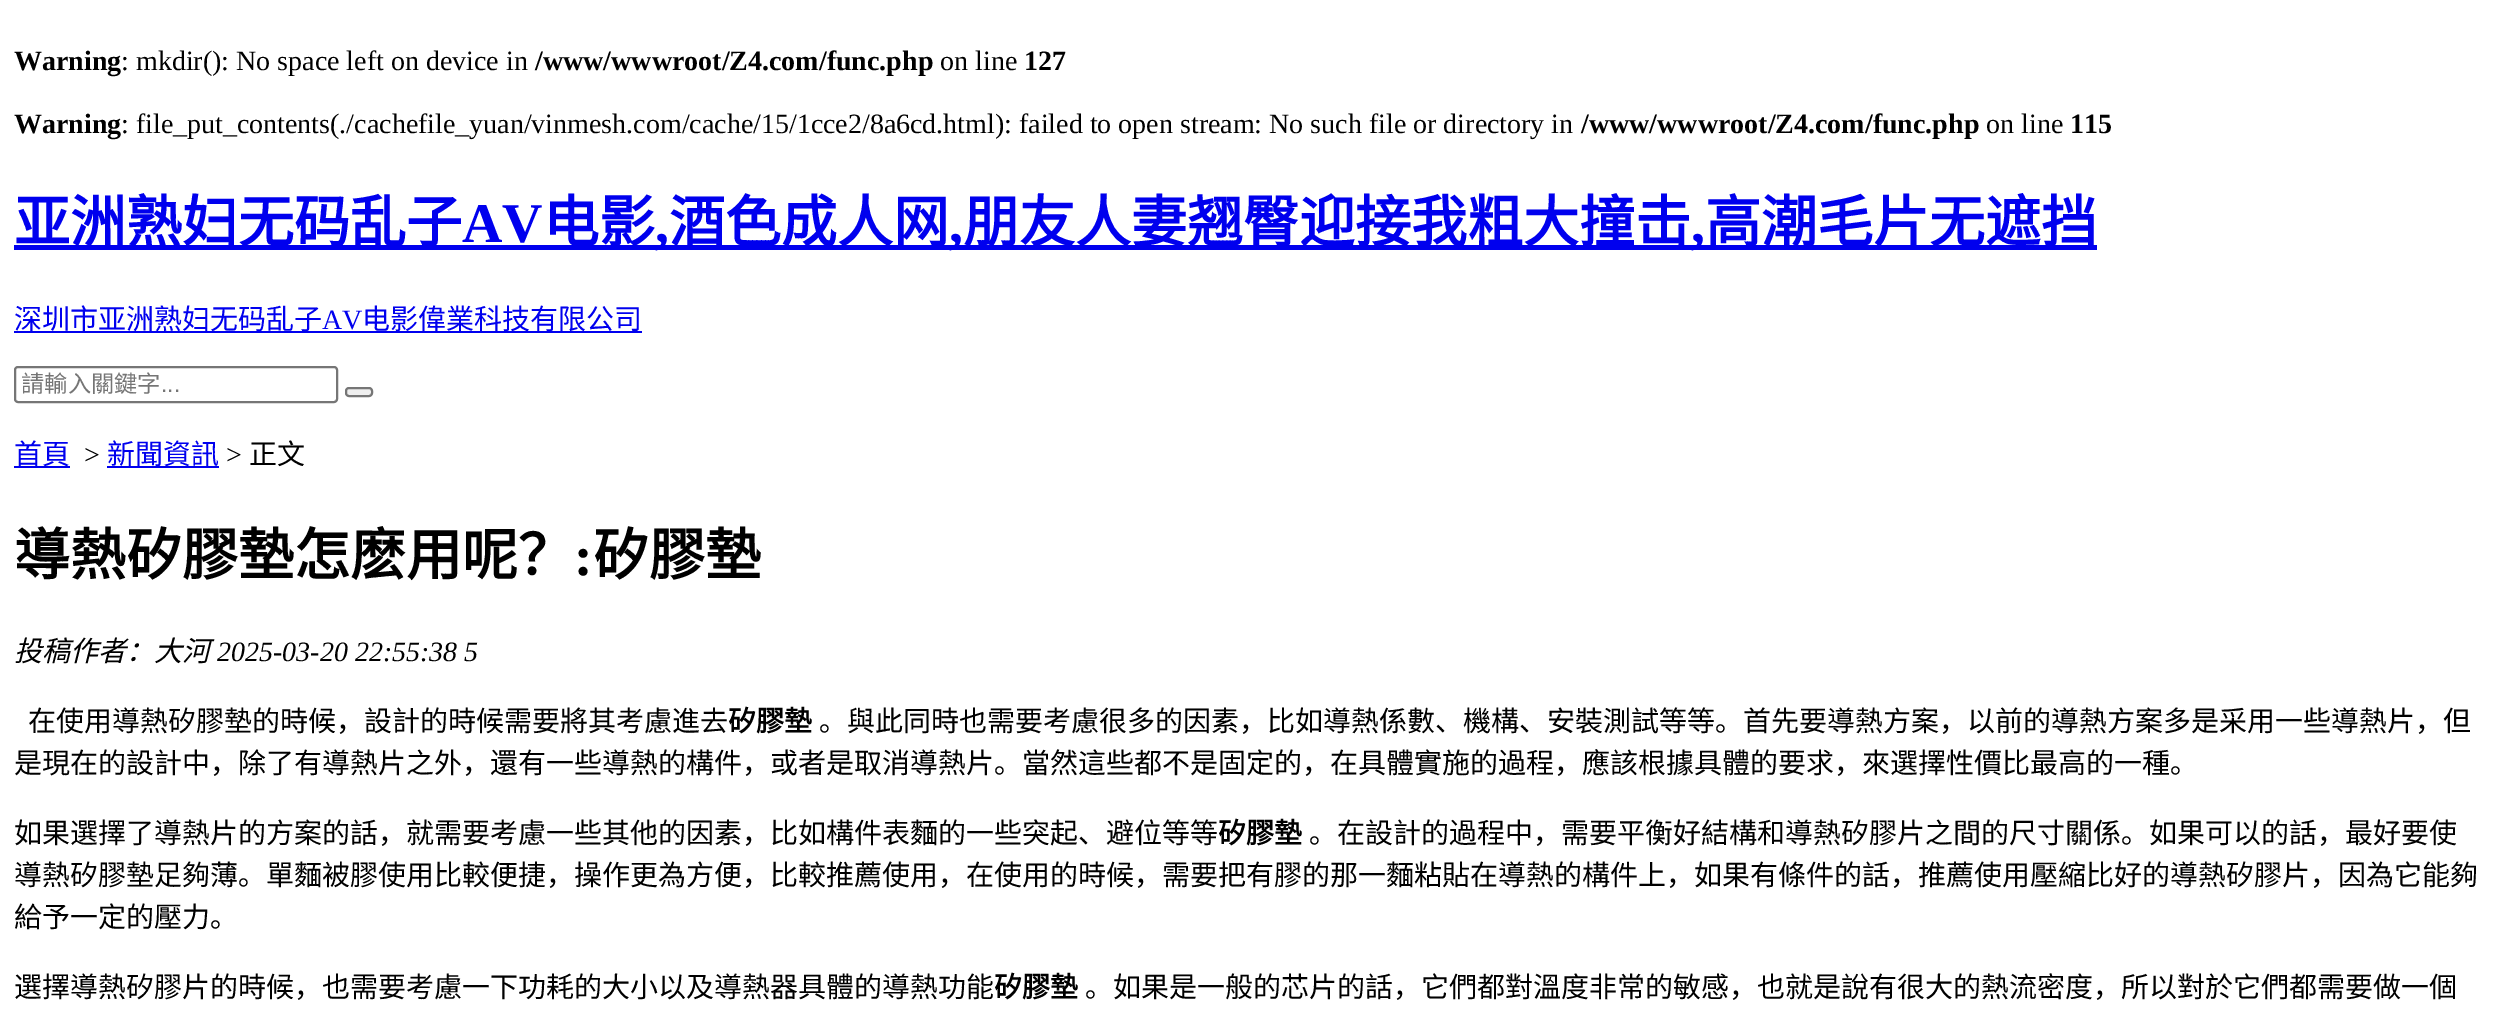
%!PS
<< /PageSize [2494 1027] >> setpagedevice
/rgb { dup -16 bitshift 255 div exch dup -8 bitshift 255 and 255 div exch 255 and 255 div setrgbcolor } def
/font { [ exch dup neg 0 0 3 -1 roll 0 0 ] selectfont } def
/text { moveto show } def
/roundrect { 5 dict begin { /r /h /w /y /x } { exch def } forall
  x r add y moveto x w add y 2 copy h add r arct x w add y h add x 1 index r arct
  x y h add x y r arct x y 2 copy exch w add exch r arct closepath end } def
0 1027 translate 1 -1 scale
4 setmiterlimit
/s1 { /LiberationSerif-Bold 28 font 16#000000 rgb } def
/s2 { /LiberationSerif-Regular 28 font 16#000000 rgb } def
/s3 { /NotoSansCJKSC-Bold 56 font 16#0000EE rgb } def
/s4 { /LiberationSerif-Bold 56 font 16#0000EE rgb } def
/s5 { /NotoSansCJKSC-Regular 28 font 16#0000EE rgb } def
/s6 { /LiberationSerif-Regular 28 font 16#0000EE rgb } def
/s7 { /NotoSansCJKSC-Regular 23.25 font 16#757575 rgb } def
/s8 { /LiberationSans-Regular 23.25 font 16#757575 rgb } def
/s9 { /NotoSansCJKSC-Regular 28 font 16#000000 rgb } def
/s10 { /NotoSansCJKSC-Bold 56 font 16#000000 rgb } def
/s11 { /LiberationSerif-Bold 56 font 16#000000 rgb } def
/s12 { /NotoSansCJKSC-Italic 28 font 16#000000 rgb } def
/s13 { /LiberationSerif-Italic 28 font 16#000000 rgb } def
/s14 { /NotoSansCJKSC-Bold 28 font 16#000000 rgb } def
16#FFFFFF rgb
0 0 2494 1027 rectfill
s1
(Warning) 14 70 text
s2
(: mkdir\(\): No space left on device in) 121 70 text
s1
(/www/wwwroot/Z4.com/func.php) 535 70 text
s2
(on line) 940 70 text
s1
(127) 1024 70 text
(Warning) 14 133 text
s2
(: file_put_contents\(./cachefile_yuan/vinmesh.com/cache/15/1cce2/8a6cd.html\): failed to open stream: No such file or directory in) 121 133 text
s1
(/www/wwwroot/Z4.com/func.php) 1581 133 text
s2
(on line) 1986 133 text
s1
(115) 2070 133 text
16#0000EE rgb
14 245 2083 5 rectfill
s3
(亚洲熟妇无码乱子) 14 242 text
s4
(AV) 462 242 text
s3
(电影) 543 242 text
s4
(,) 655 242 text
s3
(酒色成人网) 669 242 text
s4
(,) 949 242 text
s3
(朋友人妻翘臀迎接我粗大撞击) 963 242 text
s4
(,) 1691 242 text
s3
(高潮毛片无遮挡) 1705 242 text
14 331 628 2 rectfill
s5
(深圳市亚洲熟妇无码乱子) 14 329 text
s6
(AV) 322 329 text
s5
(电影偉業科技有限公司) 362 329 text
16#767676 rgb
2 setlinewidth
15 367 322 35 3 roundrect stroke
s7
(請輸入關鍵字) 21 392 text
s8
(...) 161 392 text
16#EFEFEF rgb
346 388 26 8 3 roundrect gsave fill grestore
16#767676 rgb
stroke
16#0000EE rgb
14 466 56 2 rectfill
s5
(首頁) 14 464 text
s2
(>) 84 464 text
16#0000EE rgb
107 466 112 2 rectfill
s5
(新聞資訊) 107 464 text
s2
(>) 226 464 text
s9
(正文) 249 464 text
s10
(導熱矽膠墊怎麽用呢？) 14 575 text
s11
(:) 574 575 text
s10
(矽膠墊) 593 575 text
s12
(投稿作者：大河) 14 661 text
s13
(2025-03-20 22:55:38 5) 217 661 text
s9
(在使用導熱矽膠墊的時候，設計的時候需要將其考慮進去) 28 731 text
s14
(矽膠墊) 728 731 text
s9
(。與此同時也需要考慮很多的因素，比如導熱係數、機構、安裝測試等等。首先要導熱方案，以前的導熱方案多是采用一些導熱片，但) 819 731 text
(是現在的設計中，除了有導熱片之外，還有一些導熱的構件，或者是取消導熱片。當然這些都不是固定的，在具體實施的過程，應該根據具體的要求，來選擇性價比最高的一種。) 14 773 text
(如果選擇了導熱片的方案的話，就需要考慮一些其他的因素，比如構件表麵的一些突起、避位等等) 14 843 text
s14
(矽膠墊) 1218 843 text
s9
(。在設計的過程中，需要平衡好結構和導熱矽膠片之間的尺寸關係。如果可以的話，最好要使) 1309 843 text
(導熱矽膠墊足夠薄。單麵被膠使用比較便捷，操作更為方便，比較推薦使用，在使用的時候，需要把有膠的那一麵粘貼在導熱的構件上，如果有條件的話，推薦使用壓縮比好的導熱矽膠片，因為它能夠) 14 885 text
(給予一定的壓力。) 14 927 text
(選擇導熱矽膠片的時候，也需要考慮一下功耗的大小以及導熱器具體的導熱功能) 14 997 text
s14
(矽膠墊) 994 997 text
s9
(。如果是一般的芯片的話，它們都對溫度非常的敏感，也就是說有很大的熱流密度，所以對於它們都需要做一個) 1085 997 text
showpage
